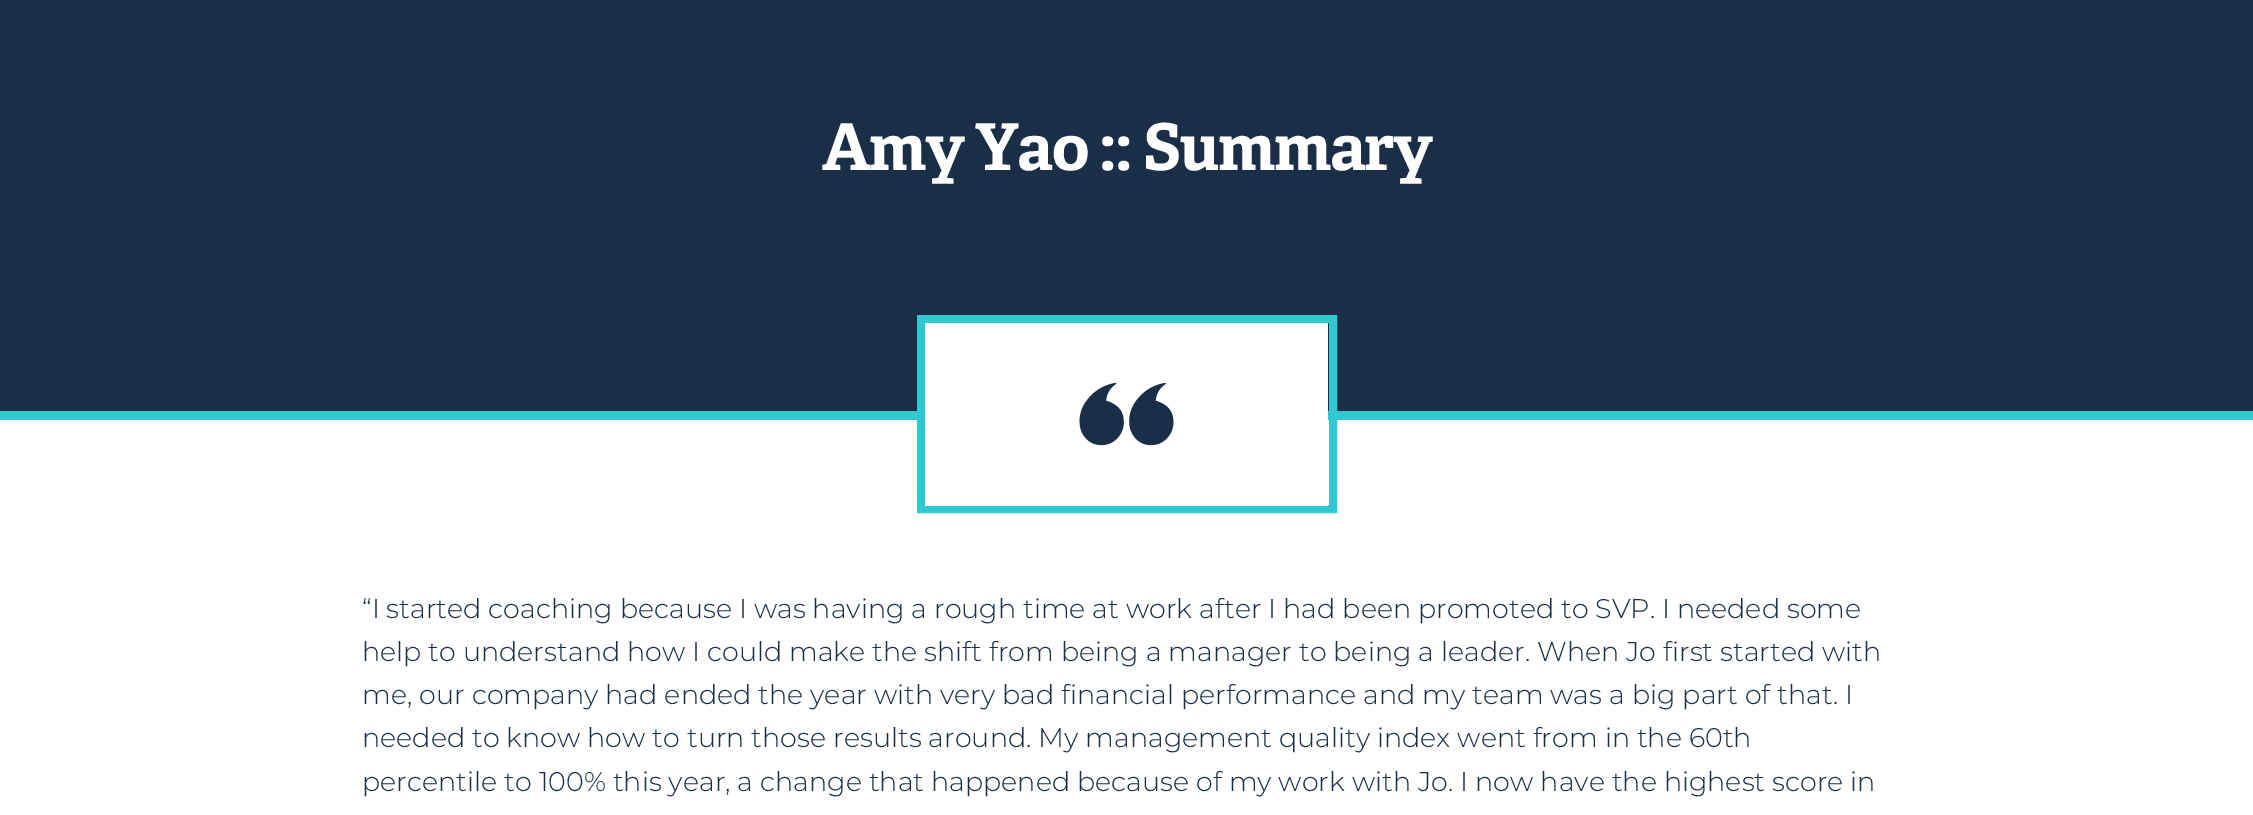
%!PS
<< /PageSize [2253 815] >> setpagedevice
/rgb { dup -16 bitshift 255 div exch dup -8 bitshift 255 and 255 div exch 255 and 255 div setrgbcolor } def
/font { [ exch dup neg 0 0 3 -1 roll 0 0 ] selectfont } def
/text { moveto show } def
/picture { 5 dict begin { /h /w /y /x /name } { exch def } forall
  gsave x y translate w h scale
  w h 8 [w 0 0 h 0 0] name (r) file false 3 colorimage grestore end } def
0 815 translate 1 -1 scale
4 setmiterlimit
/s1 { /Montserrat-Light 27 font 16#1A2F47 rgb } def
16#FFFFFF rgb
0 0 2253 815 rectfill
16#1A2F47 rgb
0 0 2253 411 rectfill
16#32C8D2 rgb
0 411 2253 9 rectfill
/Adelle-Bold 64.5 font
16#FFFFFF rgb
822 170 moveto -1.5 0 (Amy Yao :: Summary) ashow
16#32C8D2 rgb
8 setlinewidth
921 319 412 190 rectstroke
(pic1.raw) 925 323 403 183 picture
s1
(“I started coaching because I was having a rough time at work after I had been promoted to SVP. I needed some) 362 618 text
(help to understand how I could make the shift from being a manager to being a leader. When Jo first started with) 362 661 text
(me, our company had ended the year with very bad financial performance and my team was a big part of that. I) 362 704 text
(needed to know how to turn those results around. My management quality index went from in the 60th) 362 747 text
(percentile to 100% this year, a change that happened because of my work with Jo. I now have the highest score in) 362 791 text
showpage
